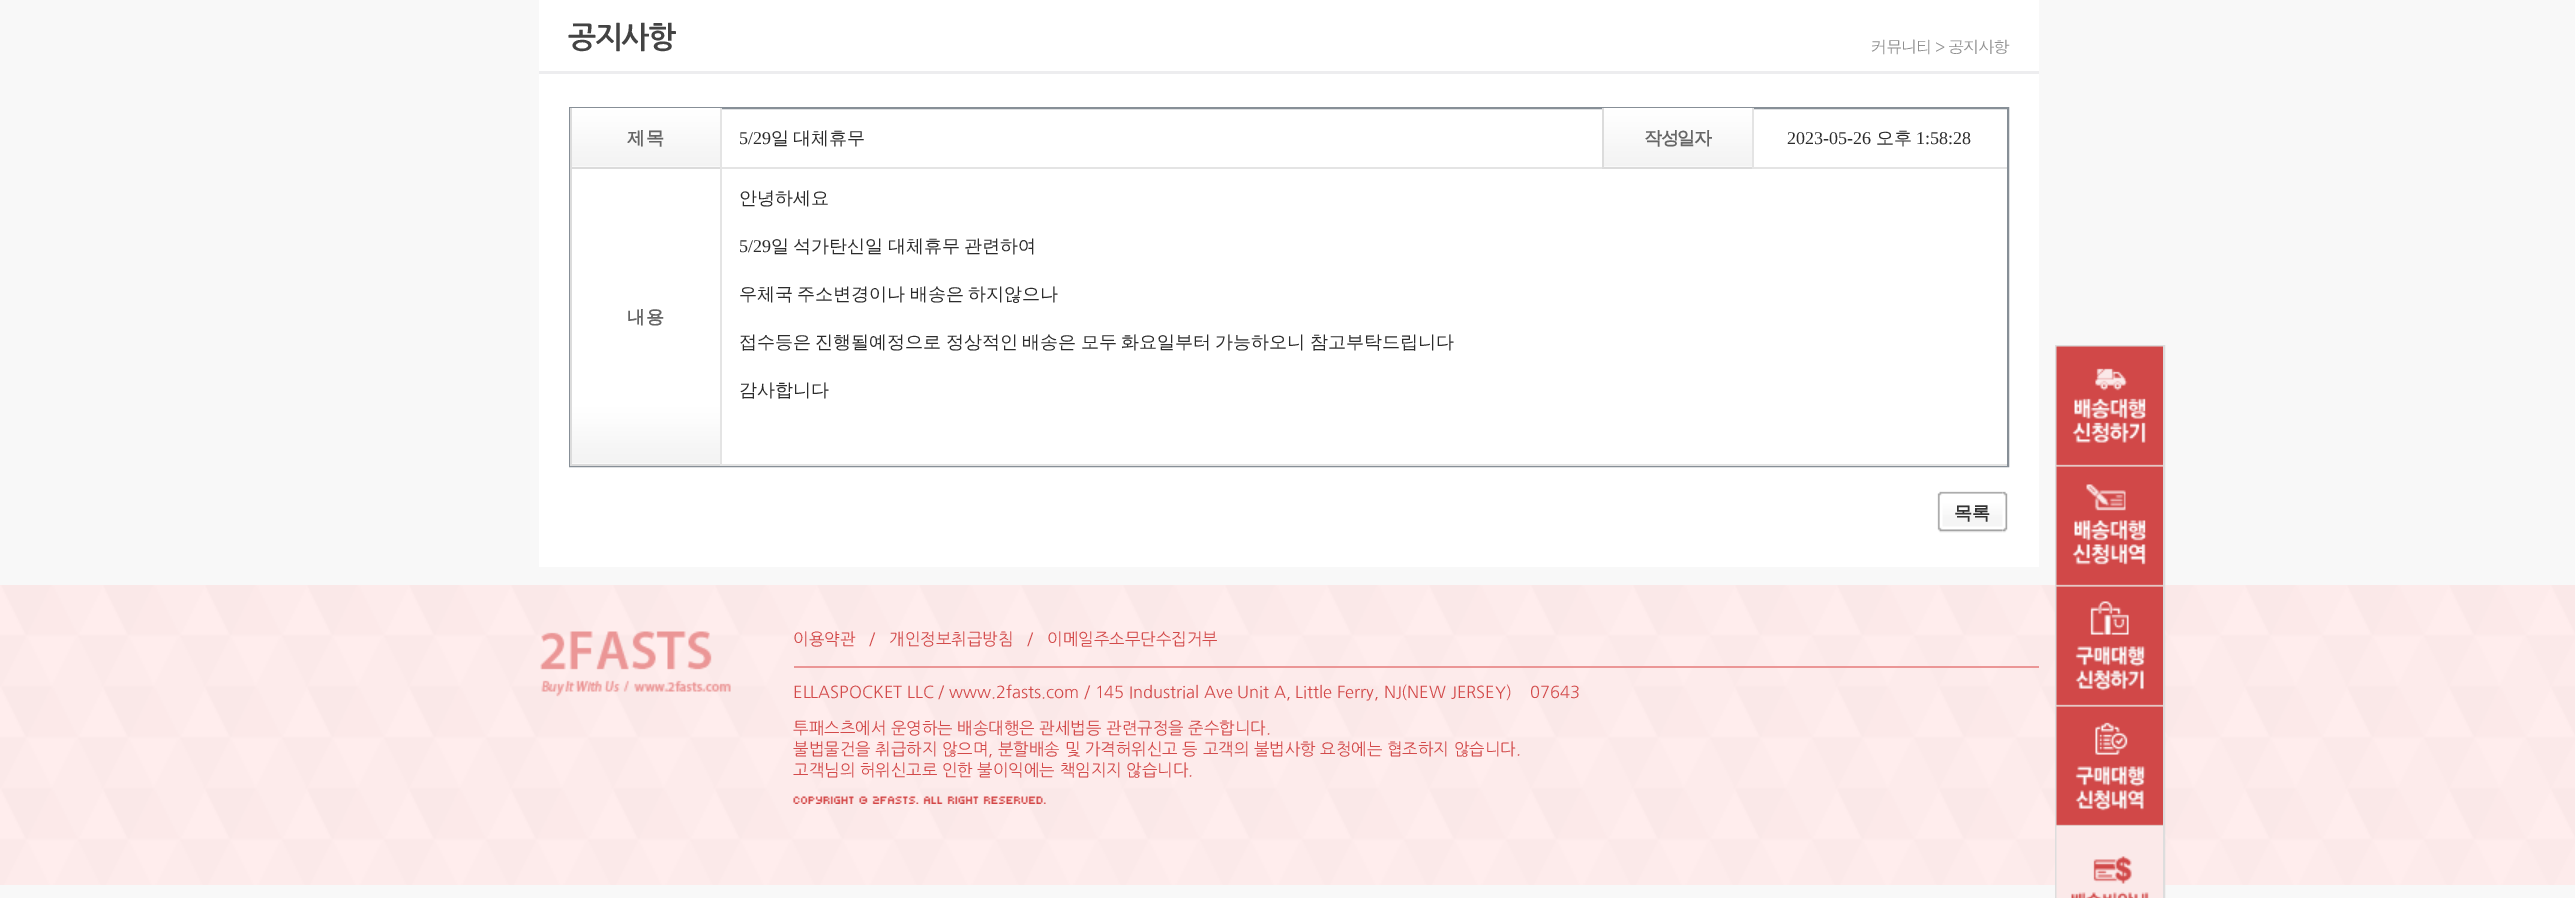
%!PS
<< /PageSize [2575 898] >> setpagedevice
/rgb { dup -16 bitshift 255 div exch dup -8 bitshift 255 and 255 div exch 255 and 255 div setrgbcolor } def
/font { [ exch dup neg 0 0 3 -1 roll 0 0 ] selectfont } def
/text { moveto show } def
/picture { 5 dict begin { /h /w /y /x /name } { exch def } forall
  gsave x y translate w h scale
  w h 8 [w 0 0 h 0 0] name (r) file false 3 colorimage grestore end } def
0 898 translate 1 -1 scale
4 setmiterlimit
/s1 { /LiberationSerif-Regular 18 font 16#2C2C2C rgb } def
/s2 { /WenQuanYiZenHei-Medium 18 font 16#2C2C2C rgb } def
/s3 { /WenQuanYiZenHei-Bold 18 font 16#333333 rgb } def
/s4 { /NanumGothic-Regular 16.5 font 16#D34A4A rgb } def
16#F8F8F8 rgb
0 0 2575 898 rectfill
16#FFFFFF rgb
539 0 1500 567 rectfill
16#EDEDEF rgb
539 71 1500 3 rectfill
/NanumGothic-Bold 30 font
16#434343 rgb
568 48 moveto -1.5 0 (공지사항) ashow
/Dotum-Regular 16.5 font
16#909090 rgb
1871 53 moveto -1.5 0 (커뮤니티 > 공지사항) ashow
16#878F97 rgb
2 setlinewidth
570 108 1438 358 rectstroke
(pic1.raw) 572 108 148 59 picture
16#DBDBDB rgb
570 167 150 2 rectfill
16#DCDCDC rgb
570 108 2 60 rectfill
/WenQuanYiZenHei-Bold 18 font
16#666666 rgb
627 144 moveto -1 0 32 -1.5 0 (제 목) awidthshow
16#E4E4E4 rgb
720 167 882 2 rectfill
720 108 2 60 rectfill
s1
(5/29) 739 144 text
/WenQuanYiZenHei-Medium 18 font
771 144 moveto -1 0 32 (일 대체휴무) widthshow
(pic1.raw) 1604 108 148 59 picture
16#DBDBDB rgb
1602 167 150 2 rectfill
16#DCDCDC rgb
1602 108 2 60 rectfill
/WenQuanYiZenHei-Bold 18 font
16#666666 rgb
1644 144 moveto -1.5 0 (작성일자) ashow
16#E4E4E4 rgb
1752 167 255 2 rectfill
1752 108 2 60 rectfill
s1
(2023-05-26) 1787 144 text
s2
(오후) 1876 144 text
s1
(1:58:28) 1916 144 text
(pic2.raw) 572 403 148 61 picture
16#DBDBDB rgb
570 464 150 2 rectfill
16#DCDCDC rgb
570 168 2 297 rectfill
/WenQuanYiZenHei-Bold 18 font
16#666666 rgb
627 323 moveto -1 0 32 -1.5 0 (내 용) awidthshow
16#E4E4E4 rgb
720 464 1287 2 rectfill
720 168 2 297 rectfill
s2
(안녕하세요) 739 204 text
s1
(5/29) 739 252 text
/WenQuanYiZenHei-Medium 18 font
771 252 moveto -1 0 32 (일 석가탄신일 대체휴무 관련하여) widthshow
739 300 moveto -1 0 32 (우체국 주소변경이나 배송은 하지않으나) widthshow
739 348 moveto -1 0 32 (접수등은 진행될예정으로 정상적인 배송은 모두 화요일부터 가능하오니 참고부탁드립니다) widthshow
(감사합니다) 739 396 text
(pic3.raw) 2002 491 6 42 picture
(pic4.raw) 1937 491 66 42 picture
s3
(목록) 1954 519 text
(pic5.raw) 0 585 2575 300 picture
(pic6.raw) 540 631 191 66 picture
16#EB9696 rgb
794 666 1245 2 rectfill
s4
(이용약관) 793 645 text
(/) 869 645 text
(개인정보취급방침) 889 645 text
(/) 1027 645 text
(이메일주소무단수집거부) 1047 645 text
(ELLASPOCKET LLC / www.2fasts.com / 145 Industrial Ave Unit A, Little Ferry, NJ\(NEW JERSEY\)    07643) 793 698 text
(투패스츠에서 운영하는 배송대행은 관세법등 관련규정을 준수합니다.) 793 734 text
(불법물건을 취급하지 않으며, 분할배송 및 가격허위신고 등 고객의 불법사항 요청에는 협조하지 않습니다.) 793 755 text
(고객님의 허위신고로 인한 불이익에는 책임지지 않습니다.) 793 776 text
(pic7.raw) 793 796 253 8 picture
16#DDDDDD rgb
2056 346 108 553 rectstroke
(pic8.raw) 2056 346 107 121 picture
(pic9.raw) 2056 466 107 121 picture
(pic10.raw) 2056 586 107 121 picture
(pic11.raw) 2056 706 107 121 picture
(pic12.raw) 2056 826 107 72 picture
showpage
